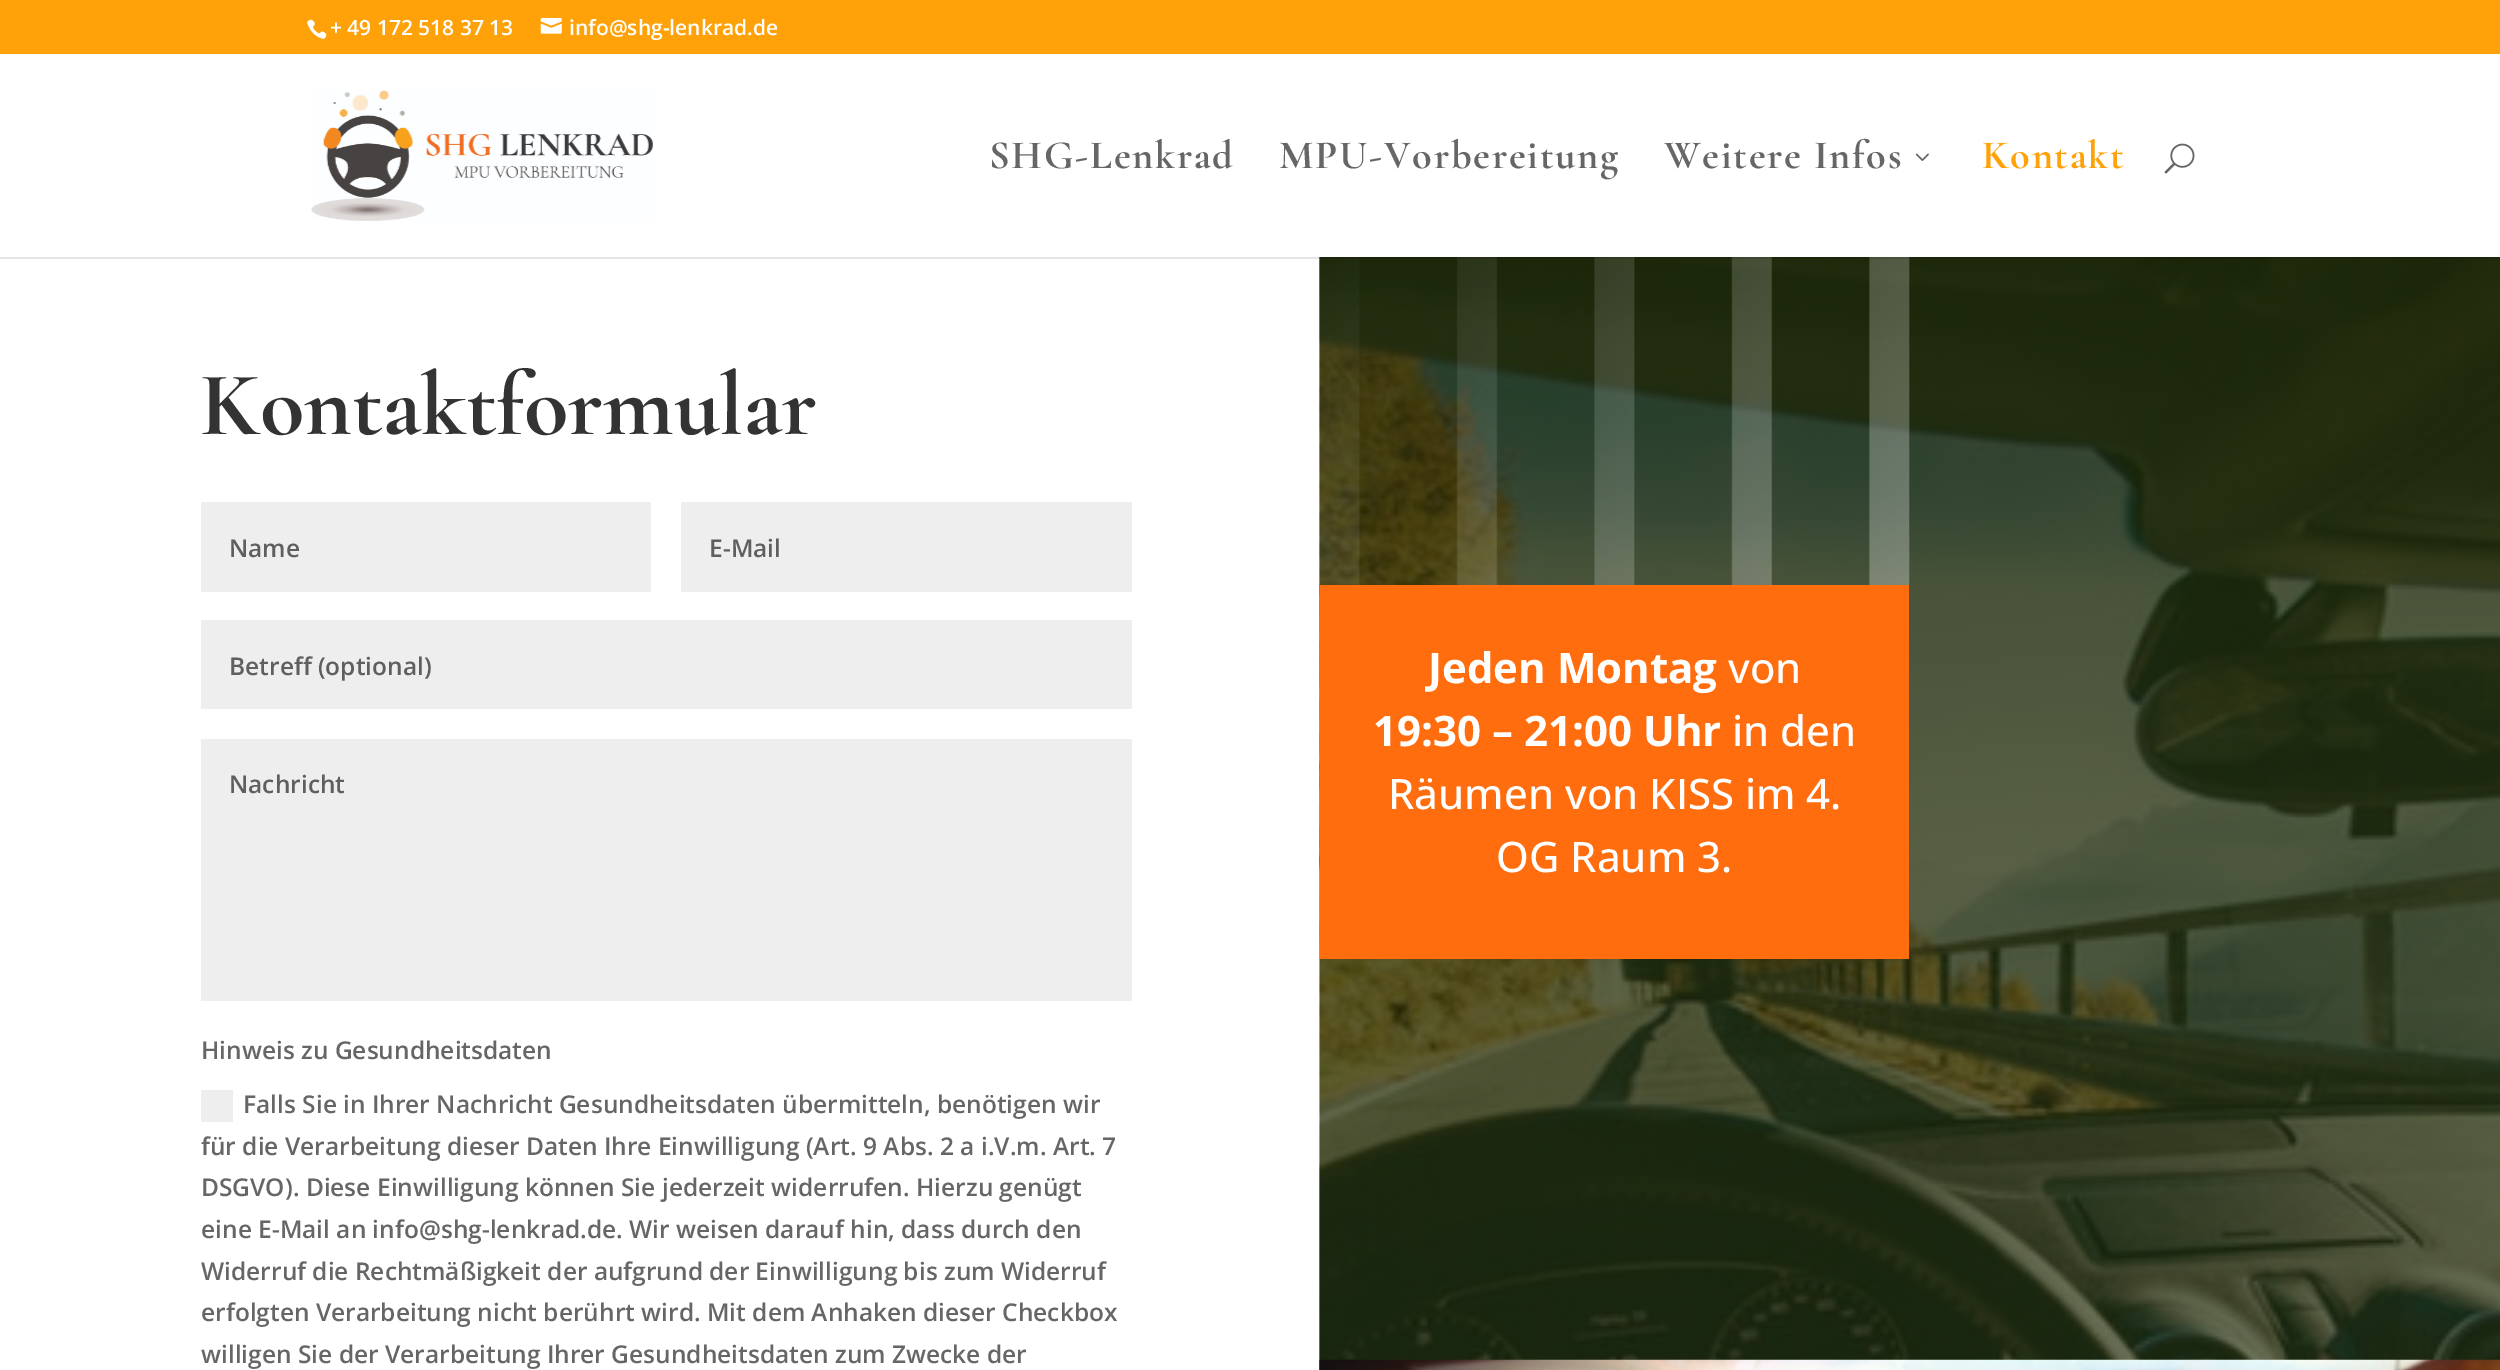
%!PS
<< /PageSize [2500 1370] /PageUsesTransparency true >> setpagedevice
/rgb { dup -16 bitshift 255 div exch dup -8 bitshift 255 and 255 div exch 255 and 255 div setrgbcolor } def
/font { [ exch dup neg 0 0 3 -1 roll 0 0 ] selectfont } def
/text { moveto show } def
/alpha { dup .setfillconstantalpha .setstrokeconstantalpha } def
/picture { 5 dict begin { /h /w /y /x /name } { exch def } forall
  gsave x y translate w h scale
  w h 8 [w 0 0 h 0 0] name (r) file false 3 colorimage grestore end } def
0 .pushpdf14devicefilter
0 1370 translate 1 -1 scale
4 setmiterlimit
/s1 { /OpenSans-SemiBold 21 font 16#FFFFFF rgb } def
/s2 { /CormorantGaramond-Bold 91 font 16#333333 rgb } def
/s3 { /OpenSans-SemiBold 24.5 font 16#5F5F5F rgb } def
/s4 { /OpenSans-SemiBold 24.5 font 16#666666 rgb } def
/s5 { /OpenSans-Bold 42 font 16#FFFFFF rgb } def
/s6 { /OpenSans-Medium 42 font 16#FFFFFF rgb } def
16#FFFFFF rgb
0 0 2500 1370 rectfill
16#FFA209 rgb
0 0 2500 54 rectfill
(pic1.raw) 307 19 20 20 picture
s1
(+ 49 172 518 37 13) 330 35 text
(pic2.raw) 540 17 22 17 picture
(info@shg-lenkrad.de) 569 35 text
(pic6.raw) 1319 257 1181 1113 picture
(pic7.raw) 1319 257 591 328 picture
0.1 alpha
16#000000 rgb
0 257 moveto 0 259 lineto 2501 259 lineto 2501 56 lineto 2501 257 lineto closepath fill
1 alpha
(pic3.raw) 311 90 342 131 picture
/CormorantGaramond-Bold 40.25 font
16#666666 rgb
989 168 moveto 1.75 0 (SHG-Lenkrad) ashow
1279 168 moveto 1.75 0 (MPU-Vorbereitung) ashow
1664 168 moveto 1.75 0 (Weitere Infos) ashow
(pic4.raw) 1915 153 14 8 picture
16#FFA209 rgb
1982 168 moveto 1.75 0 (Kontakt) ashow
(pic5.raw) 2164 143 31 31 picture
s2
(Kontaktformular) 200 434 text
16#EEEEEE rgb
201 502 450 90 rectfill
s3
(Name) 229 557 text
16#EEEEEE rgb
681 502 451 90 rectfill
s3
(E-Mail) 709 557 text
16#EEEEEE rgb
201 620 931 89 rectfill
s3
(Betreff \(optional\)) 229 675 text
16#EEEEEE rgb
201 739 931 262 rectfill
s3
(Nachricht) 229 793 text
s4
(Hinweis zu Gesundheitsdaten) 201 1059 text
16#EEEEEE rgb
201 1090 32 32 rectfill
s4
(Falls Sie in Ihrer Nachricht Gesundheitsdaten übermitteln, benötigen wir) 243 1113 text
(für die Verarbeitung dieser Daten Ihre Einwilligung \(Art. 9 Abs. 2 a i.V.m. Art. 7) 201 1155 text
(DSGVO\). Diese Einwilligung können Sie jederzeit widerrufen. Hierzu genügt) 201 1196 text
(eine E-Mail an info@shg-lenkrad.de. Wir weisen darauf hin, dass durch den) 201 1238 text
(Widerruf die Rechtmäßigkeit der aufgrund der Einwilligung bis zum Widerruf) 201 1280 text
(erfolgten Verarbeitung nicht berührt wird. Mit dem Anhaken dieser Checkbox) 201 1321 text
(willigen Sie der Verarbeitung Ihrer Gesundheitsdaten zum Zwecke der) 201 1363 text
16#FF6D0E rgb
1320 585 589 374 rectfill
s5
(Jeden Montag) 1428 683 text
s6
(von) 1728 683 text
s5
(19:30 – 21:00 Uhr) 1373 746 text
s6
(in den) 1732 746 text
(Räumen von KISS im 4.) 1388 809 text
(OG Raum 3.) 1496 872 text
(pic8.raw) 1319 1359 1181 11 picture
.poppdf14devicefilter showpage
